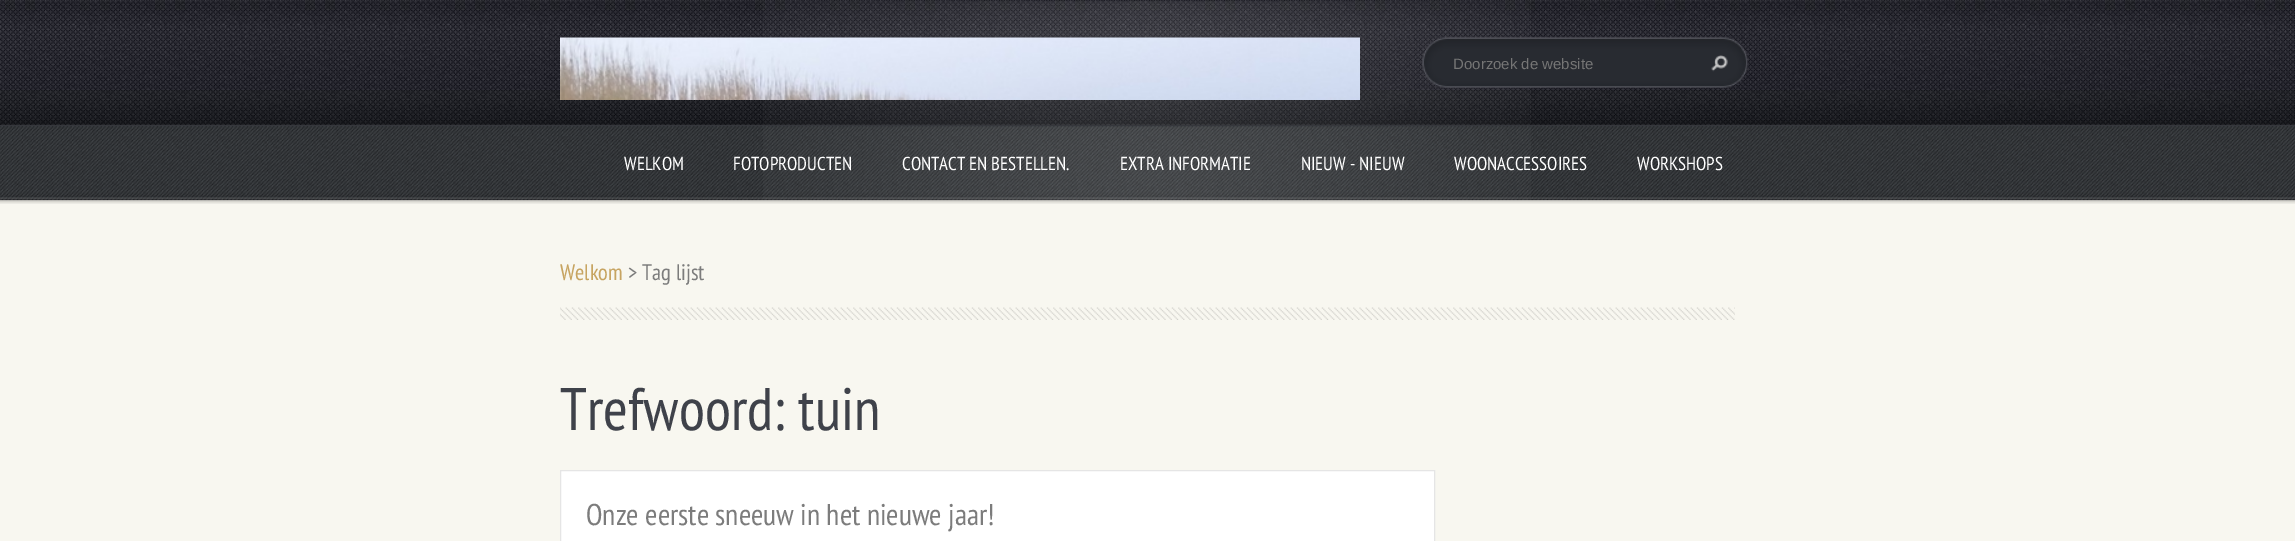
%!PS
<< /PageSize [2295 541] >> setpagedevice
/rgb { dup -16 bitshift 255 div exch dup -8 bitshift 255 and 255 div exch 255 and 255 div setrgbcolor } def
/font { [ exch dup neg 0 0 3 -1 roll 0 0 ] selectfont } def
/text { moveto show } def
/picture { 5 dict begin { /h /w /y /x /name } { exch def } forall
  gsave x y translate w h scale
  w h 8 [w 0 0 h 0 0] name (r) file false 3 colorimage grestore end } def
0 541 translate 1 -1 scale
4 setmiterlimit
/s1 { /LiberationSans-Regular 15 font 16#757575 rgb } def
/s2 { /PTSansNarrow-Regular 18.75 font 16#FFFFFF rgb } def
/s3 { /PTSansNarrow-Regular 22.5 font 16#C7A461 rgb } def
/s4 { /PTSansNarrow-Regular 22.5 font 16#7C7C7C rgb } def
/s5 { /PTSansNarrow-Regular 60 font 16#3F424A rgb } def
/s6 { /PTSansNarrow-Regular 30 font 16#7C7C7C rgb } def
16#FFFFFF rgb
0 0 2295 541 rectfill
(pic1.raw) 0 125 2295 75 picture
(pic2.raw) 0 0 2295 125 picture
(pic3.raw) 763 1 768 124 picture
(pic4.raw) 560 37 800 63 picture
(pic5.raw) 1422 37 326 51 picture
s1
(Doorzoek de website) 1453 69 text
(pic6.raw) 1711 55 17 17 picture
(pic7.raw) 0 125 2295 75 picture
(pic8.raw) 763 126 768 74 picture
s2
(WELKOM) 624 170 text
(FOTOPRODUCTEN) 733 170 text
(CONTACT EN BESTELLEN.) 902 170 text
(EXTRA INFORMATIE) 1120 170 text
(NIEUW - NIEUW) 1301 170 text
(WOONACCESSOIRES) 1454 170 text
(WORKSHOPS) 1637 170 text
16#F8F7F0 rgb
0 200 2295 341 rectfill
(pic9.raw) 0 200 2295 4 picture
(pic10.raw) 560 307 1175 13 picture
s3
(Welkom) 560 280 text
s4
(> Tag lijst) 628 280 text
s5
(Trefwoord: tuin) 560 430 text
16#FFFFFF rgb
560.5 470.5 moveto 1434.5 470.5 lineto 1434.5 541.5 lineto 560.5 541.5 lineto closepath gsave fill grestore
16#E5E5E5 rgb
stroke
s6
(Onze eerste sneeuw in het nieuwe jaar!) 586 525 text
showpage
